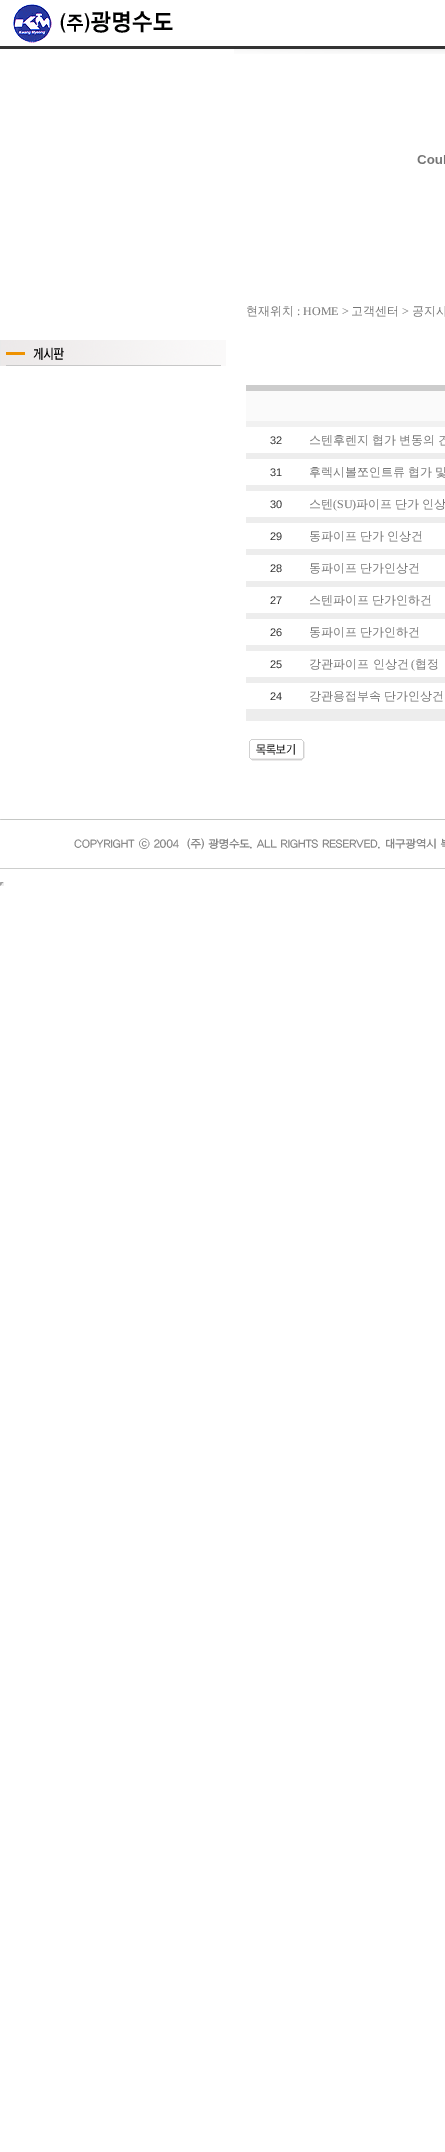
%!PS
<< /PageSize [445 2152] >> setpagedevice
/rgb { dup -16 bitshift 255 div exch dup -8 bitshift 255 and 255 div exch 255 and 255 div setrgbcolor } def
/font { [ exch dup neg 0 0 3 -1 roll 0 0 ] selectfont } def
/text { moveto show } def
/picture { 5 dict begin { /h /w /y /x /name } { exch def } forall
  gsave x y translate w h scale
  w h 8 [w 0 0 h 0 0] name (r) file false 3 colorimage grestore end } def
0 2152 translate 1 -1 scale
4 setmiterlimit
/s1 { /WenQuanYiZenHei-Medium 12 font 16#777777 rgb } def
/s2 { /LiberationSerif-Regular 12 font 16#777777 rgb } def
/s3 { /LiberationSans-Regular 11 font 16#333333 rgb } def
16#FFFFFF rgb
0 0 445 2152 rectfill
(pic1.raw) 13 4 160 39 picture
(pic2.raw) 0 46 445 8 picture
(pic3.raw) 417 155 28 9 picture
(pic4.raw) 0 340 226 26 picture
s1
(현재위치) 246 315 text
s2
(: HOME >) 297 315 text
s1
(고객센터) 351 315 text
s2
(>) 402 315 text
s1
(공지사) 412 315 text
16#CCCCCC rgb
246 385 199 6 rectfill
16#FAFAFA rgb
246 391 199 30 rectfill
16#F1F1F1 rgb
246 421 199 6 rectfill
s3
(32) 270 444 text
/WenQuanYiZenHei-Medium 12 font
16#777777 rgb
309 444 moveto -0.5 0 32 (스텐후렌지 협가 변동의 건) widthshow
16#EDEDED rgb
246 453 199 6 rectfill
s3
(31) 270 476 text
/WenQuanYiZenHei-Medium 12 font
16#777777 rgb
309 476 moveto -0.5 0 32 (후렉시볼쪼인트류 협가 및) widthshow
16#EDEDED rgb
246 485 199 6 rectfill
s3
(30) 270 508 text
s1
(스텐) 309 508 text
s2
(\(SU\)) 333 508 text
/WenQuanYiZenHei-Medium 12 font
356 508 moveto -0.5 0 32 (파이프 단가 인상) widthshow
16#EDEDED rgb
246 517 199 6 rectfill
s3
(29) 270 540 text
/WenQuanYiZenHei-Medium 12 font
16#777777 rgb
309 540 moveto -0.5 0 32 (동파이프 단가 인상건) widthshow
16#EDEDED rgb
246 549 199 6 rectfill
s3
(28) 270 572 text
/WenQuanYiZenHei-Medium 12 font
16#777777 rgb
309 572 moveto -0.5 0 32 (동파이프 단가인상건) widthshow
16#EDEDED rgb
246 581 199 6 rectfill
s3
(27) 270 604 text
/WenQuanYiZenHei-Medium 12 font
16#777777 rgb
309 604 moveto -0.5 0 32 (스텐파이프 단가인하건) widthshow
16#EDEDED rgb
246 613 199 6 rectfill
s3
(26) 270 636 text
/WenQuanYiZenHei-Medium 12 font
16#777777 rgb
309 636 moveto -0.5 0 32 (동파이프 단가인하건) widthshow
16#EDEDED rgb
246 645 199 6 rectfill
s3
(25) 270 668 text
s1
(강관파이프 인상건) 309 668 text
s2
(\() 411 668 text
s1
(협정) 415 668 text
16#EDEDED rgb
246 677 199 6 rectfill
s3
(24) 270 700 text
/WenQuanYiZenHei-Medium 12 font
16#777777 rgb
309 700 moveto -0.5 0 32 (강관용접부속 단가인상건) widthshow
16#EDEDED rgb
246 709 199 12 rectfill
(pic5.raw) 249 739 56 22 picture
(pic6.raw) 0 819 445 50 picture
16#9F9F9F rgb
0 882 moveto 4 882 lineto 2 884 lineto closepath fill
16#EEEEEE rgb
4 882 moveto 4 886 lineto 2 884 lineto closepath fill
4 886 moveto 0 886 lineto 2 884 lineto closepath fill
16#9F9F9F rgb
0 886 moveto 0 882 lineto 2 884 lineto closepath fill
showpage
